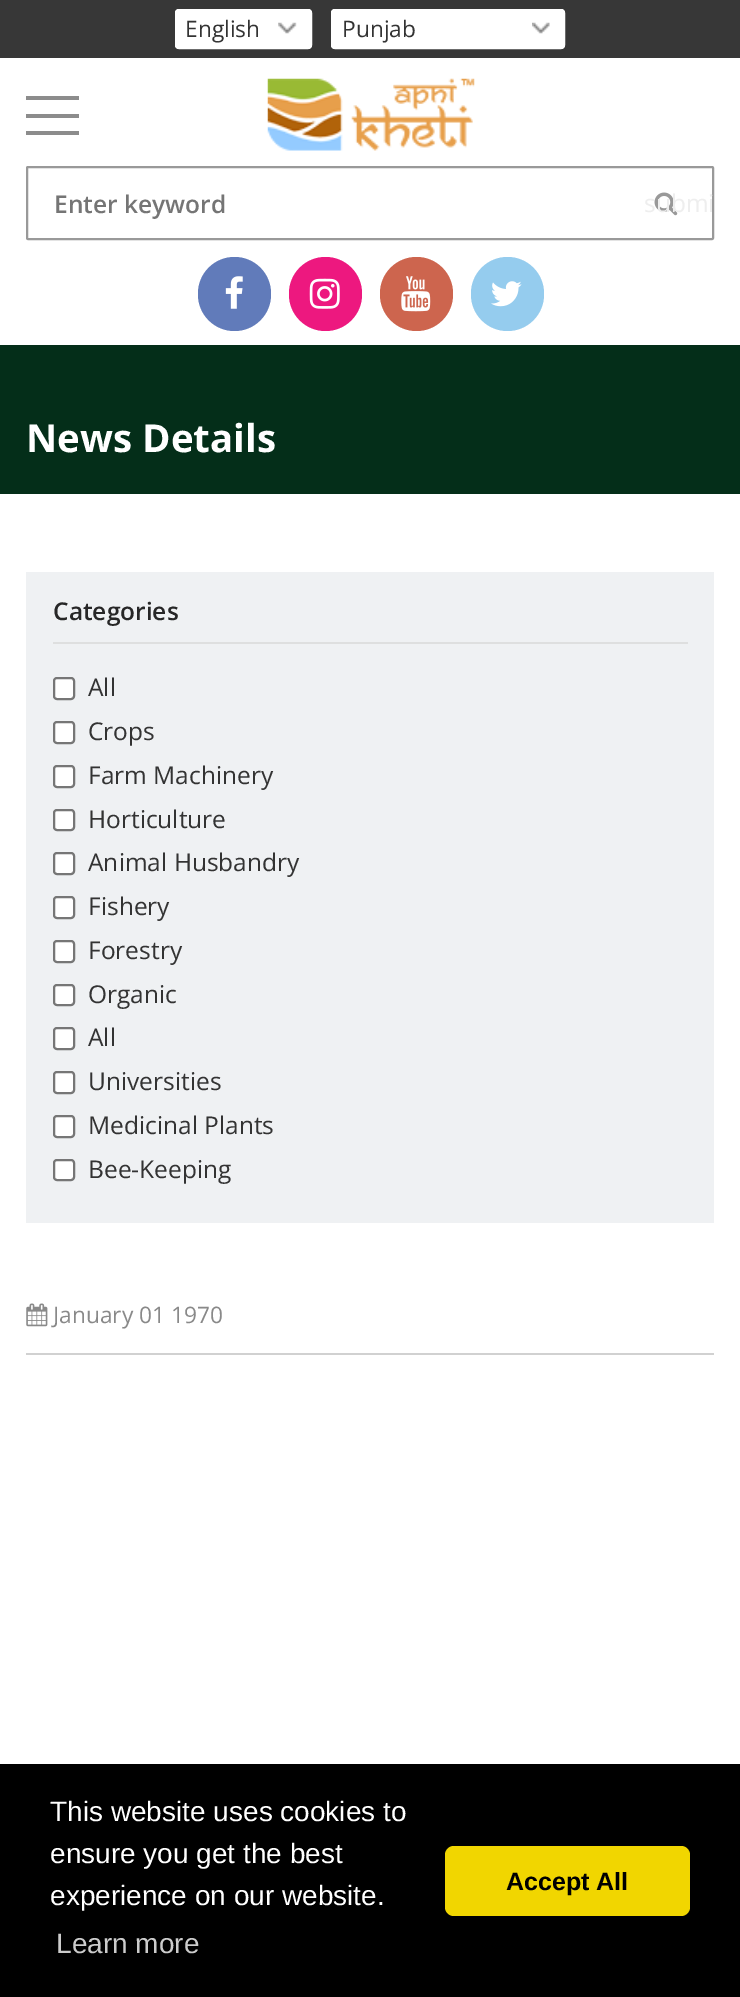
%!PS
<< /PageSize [740 1997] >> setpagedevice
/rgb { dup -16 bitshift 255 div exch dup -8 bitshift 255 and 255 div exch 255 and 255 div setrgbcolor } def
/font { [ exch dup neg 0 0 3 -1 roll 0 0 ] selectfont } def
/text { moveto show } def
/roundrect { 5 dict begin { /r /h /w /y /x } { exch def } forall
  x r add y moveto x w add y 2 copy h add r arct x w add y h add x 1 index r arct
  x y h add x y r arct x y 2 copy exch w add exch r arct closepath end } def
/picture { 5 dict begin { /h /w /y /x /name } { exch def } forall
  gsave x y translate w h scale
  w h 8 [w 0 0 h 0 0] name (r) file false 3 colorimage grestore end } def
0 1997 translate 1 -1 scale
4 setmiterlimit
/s1 { /OpenSans-Regular 22.75 font 16#333333 rgb } def
/s2 { /OpenSans-SemiBold 24.5 font 16#757575 rgb } def
/s3 { /OpenSans-Regular 24.5 font 16#EEEEEE rgb } def
/s4 { /OpenSans-Bold 38.5 font 16#FFFFFF rgb } def
/s5 { /OpenSans-SemiBold 24.5 font 16#272727 rgb } def
/s6 { /OpenSans-Regular 24.5 font 16#333333 rgb } def
/s7 { /OpenSans-Regular 22.75 font 16#898989 rgb } def
/s8 { /LiberationSans-Regular 28 font 16#FFFFFF rgb } def
/s9 { /LiberationSans-Regular 28 font 16#CCCCCC rgb } def
/s10 { /LiberationSans-Bold 25 font 16#000000 rgb } def
16#FFFFFF rgb
0 0 740 1997 rectfill
16#373737 rgb
0 0 740 58 rectfill
16#FFFFFF rgb
175 9 137 40 4 roundrect fill
(pic1.raw) 278 22 19 12 picture
2 setlinewidth
176 10 135 38 3 roundrect stroke
s1
(English) 185 37 text
16#FFFFFF rgb
331 9 234 40 4 roundrect fill
(pic2.raw) 532 22 18 12 picture
332 10 232 38 3 roundrect stroke
s1
(Punjab) 342 37 text
16#8C8C8C rgb
26 96 53 4 rectfill
26 114 53 4 rectfill
26 131 53 4 rectfill
(pic3.raw) 267 78 208 73 picture
16#999999 rgb
27 167 686 72 1 roundrect stroke
(pic4.raw) 654 192 24 24 picture
s2
(Enter keyword) 54 213 text
s3
(submi) 644 212 text
16#617BBA rgb
198 257 73 74 36.5 roundrect fill
(pic5.raw) 225 276 18 33 picture
16#ED187F rgb
289 257 73 74 36.5 roundrect fill
(pic6.raw) 309 278 31 31 picture
16#CD654E rgb
380 257 73 74 36.5 roundrect fill
(pic7.raw) 401 276 30 36 picture
16#95CCEE rgb
471 257 73 74 36.5 roundrect fill
(pic8.raw) 491 281 31 26 picture
16#042E19 rgb
0 345 740 149 rectfill
s4
(News Details) 26 452 text
16#EFF1F3 rgb
26 572 688 651 rectfill
16#DEDFDF rgb
53 642 635 2 rectfill
s5
(Categories) 53 620 text
16#FFFFFF rgb
54 678 20 21 3 roundrect gsave fill grestore
16#767676 rgb
stroke
s6
(All) 88 696 text
16#FFFFFF rgb
54 722 20 21 3 roundrect gsave fill grestore
16#767676 rgb
stroke
s6
(Crops) 88 740 text
16#FFFFFF rgb
54 766 20 21 3 roundrect gsave fill grestore
16#767676 rgb
stroke
s6
(Farm Machinery) 88 784 text
16#FFFFFF rgb
54 810 20 20 3 roundrect gsave fill grestore
16#767676 rgb
stroke
s6
(Horticulture) 88 828 text
16#FFFFFF rgb
54 853 20 21 3 roundrect gsave fill grestore
16#767676 rgb
stroke
s6
(Animal Husbandry) 88 871 text
16#FFFFFF rgb
54 897 20 21 3 roundrect gsave fill grestore
16#767676 rgb
stroke
s6
(Fishery) 88 915 text
16#FFFFFF rgb
54 941 20 21 3 roundrect gsave fill grestore
16#767676 rgb
stroke
s6
(Forestry) 88 959 text
16#FFFFFF rgb
54 985 20 20 3 roundrect gsave fill grestore
16#767676 rgb
stroke
s6
(Organic) 88 1003 text
16#FFFFFF rgb
54 1028 20 21 3 roundrect gsave fill grestore
16#767676 rgb
stroke
s6
(All) 88 1046 text
16#FFFFFF rgb
54 1072 20 21 3 roundrect gsave fill grestore
16#767676 rgb
stroke
s6
(Universities) 88 1090 text
16#FFFFFF rgb
54 1116 20 21 3 roundrect gsave fill grestore
16#767676 rgb
stroke
s6
(Medicinal Plants) 88 1134 text
16#FFFFFF rgb
54 1160 20 20 3 roundrect gsave fill grestore
16#767676 rgb
stroke
s6
(Bee-Keeping) 88 1178 text
16#D1D1D1 rgb
26 1353 688 2 rectfill
(pic9.raw) 26 1303 22 24 picture
s7
(January 01 1970) 53 1323 text
16#000000 rgb
0 1764 740 233 rectfill
s8
(This website uses cookies to) 50 1821 text
(ensure you get the best) 50 1863 text
(experience on our website.) 50 1905 text
s9
(Learn more) 56 1953 text
16#F1D600 rgb
445 1846 245 70 9 roundrect fill
s10
(Accept All) 506 1890 text
showpage
